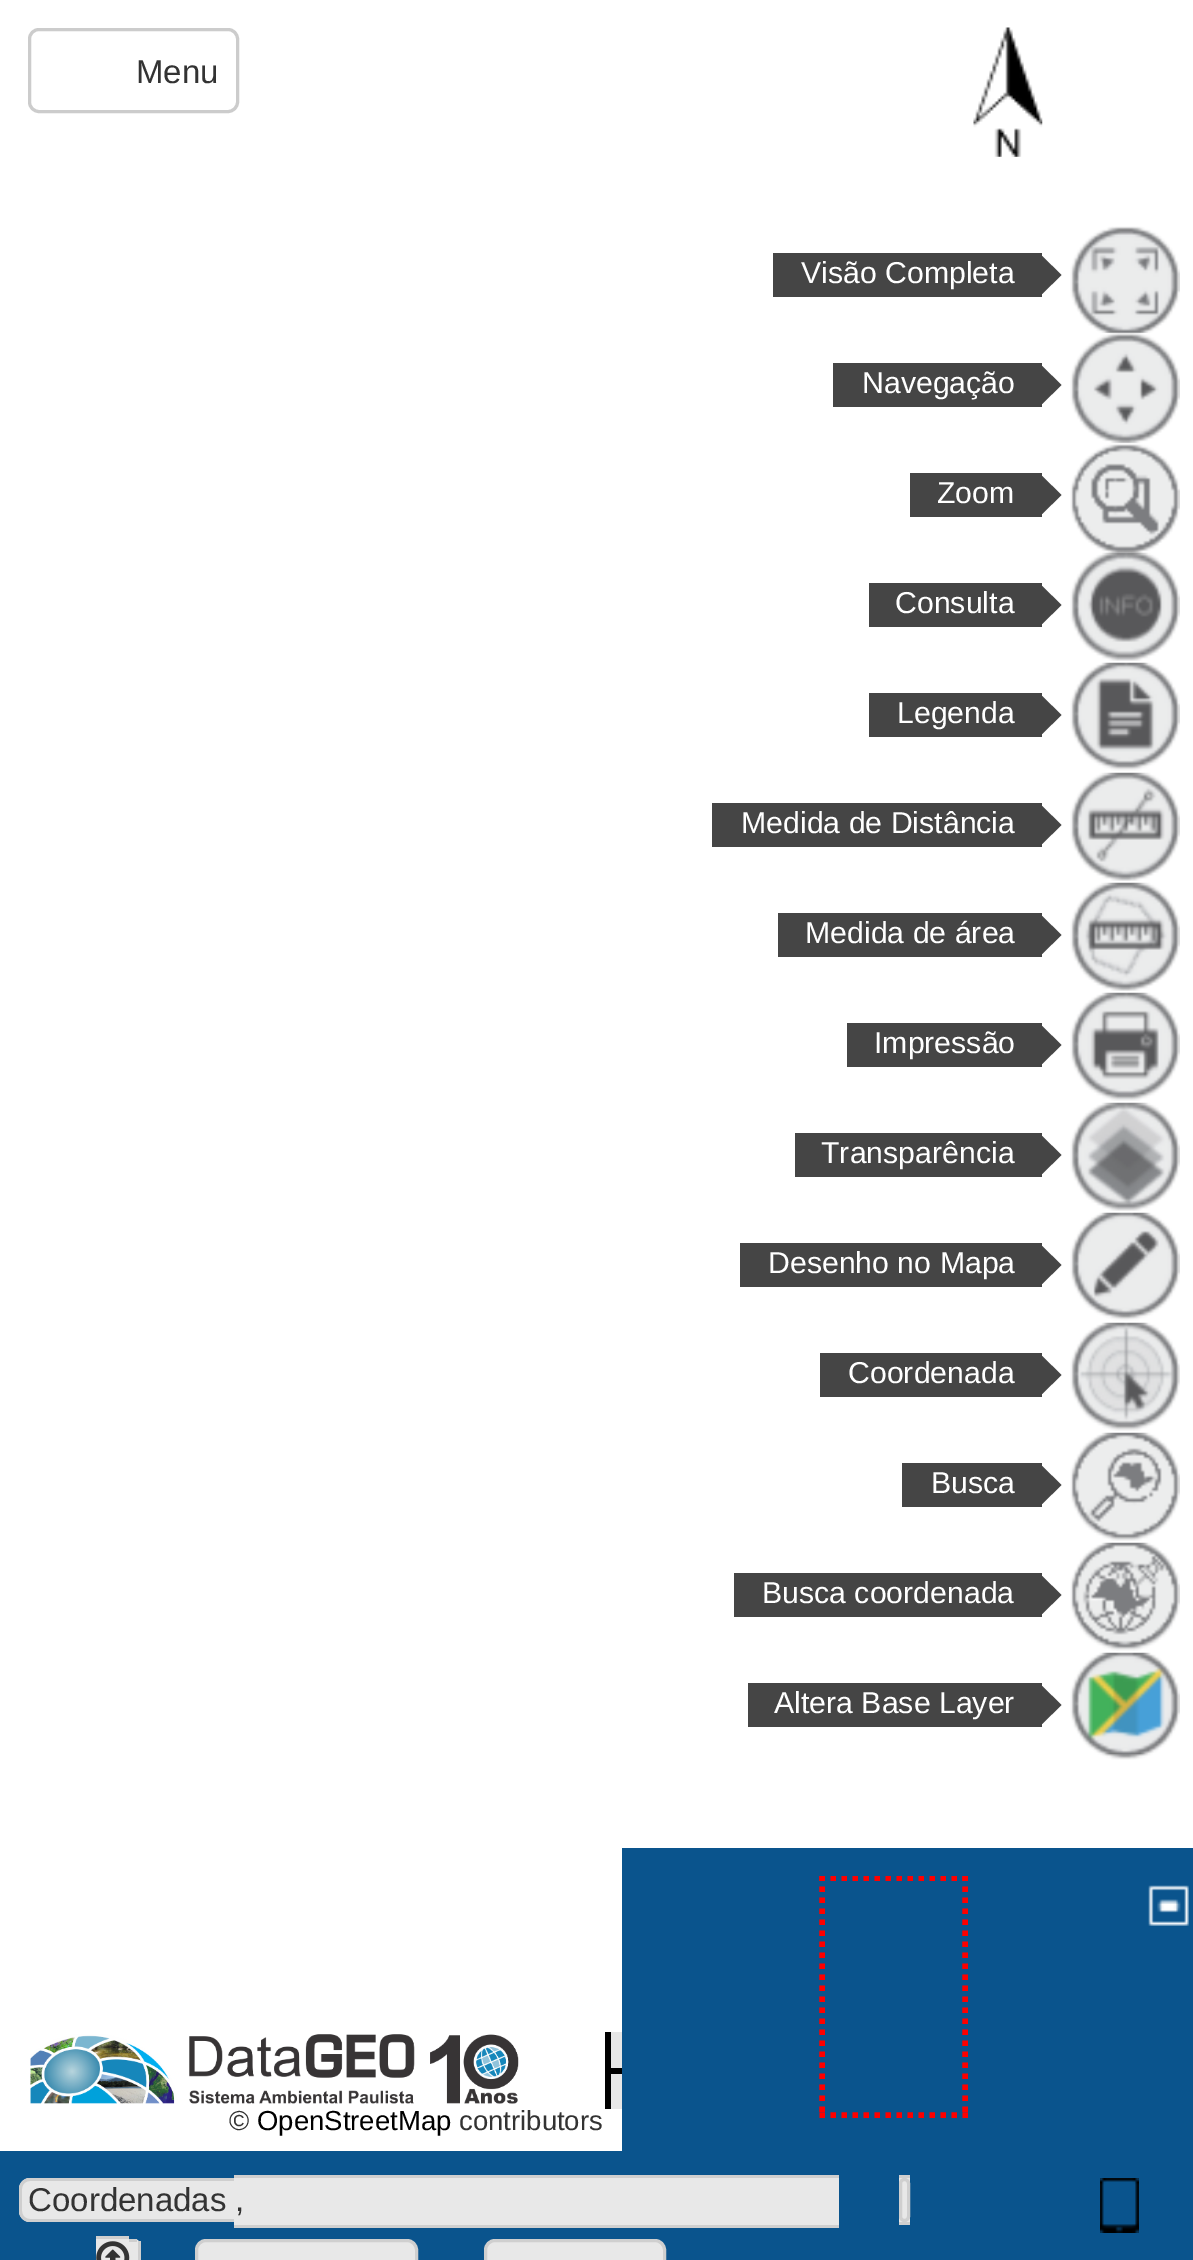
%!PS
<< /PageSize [1193 2260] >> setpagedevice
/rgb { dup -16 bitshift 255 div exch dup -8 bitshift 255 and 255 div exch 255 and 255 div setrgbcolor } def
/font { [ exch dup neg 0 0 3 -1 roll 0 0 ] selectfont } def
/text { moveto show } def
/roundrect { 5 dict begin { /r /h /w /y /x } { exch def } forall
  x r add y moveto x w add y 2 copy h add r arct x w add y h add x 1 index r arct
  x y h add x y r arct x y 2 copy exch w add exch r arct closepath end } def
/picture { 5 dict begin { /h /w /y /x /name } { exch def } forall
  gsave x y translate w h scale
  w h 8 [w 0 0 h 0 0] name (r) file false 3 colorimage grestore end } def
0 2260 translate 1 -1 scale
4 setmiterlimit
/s1 { /LiberationSans-Regular 33 font 16#333333 rgb } def
/s2 { /LiberationSans-Regular 30.25 font 16#FFFFFF rgb } def
/s3 { /LiberationSans-Regular 27.5 font 16#333333 rgb } def
/s4 { /LiberationSans-Regular 27.5 font 16#000000 rgb } def
16#FFFFFF rgb
0 0 1193 2260 rectfill
16#CCCCCC rgb
3 setlinewidth
29.5 29.5 208 82 9.5 roundrect stroke
s1
(Menu) 136 83 text
(pic1.raw) 1070 226 110 107 picture
16#454545 rgb
773 253 269 44 rectfill
s2
(Visão Completa) 801 283 text
16#454545 rgb
1042 294 moveto 1042 256 lineto 1061.5 275 lineto closepath fill
(pic2.raw) 1070 333 110 110 picture
833 363 209 44 rectfill
s2
(Navegação) 862 393 text
16#454545 rgb
1042 404 moveto 1042 366 lineto 1061.5 385 lineto closepath fill
(pic3.raw) 1070 443 110 110 picture
910 473 132 44 rectfill
s2
(Zoom) 937 503 text
16#454545 rgb
1042 514 moveto 1042 476 lineto 1061.5 495 lineto closepath fill
(pic4.raw) 1070 552 110 109 picture
869 583 173 44 rectfill
s2
(Consulta) 895 613 text
16#454545 rgb
1042 624 moveto 1042 586 lineto 1061.5 605 lineto closepath fill
(pic5.raw) 1070 662 110 109 picture
869 693 173 44 rectfill
s2
(Legenda) 897 723 text
16#454545 rgb
1042 734 moveto 1042 696 lineto 1061.5 715 lineto closepath fill
(pic6.raw) 1070 772 110 109 picture
712 803 330 44 rectfill
s2
(Medida de Distância) 741 833 text
16#454545 rgb
1042 844 moveto 1042 806 lineto 1061.5 825 lineto closepath fill
(pic7.raw) 1070 882 110 109 picture
778 913 264 44 rectfill
s2
(Medida de área) 805 943 text
16#454545 rgb
1042 954 moveto 1042 916 lineto 1061.5 935 lineto closepath fill
(pic8.raw) 1070 992 110 109 picture
847 1023 195 44 rectfill
s2
(Impressão) 874 1053 text
16#454545 rgb
1042 1064 moveto 1042 1026 lineto 1061.5 1045 lineto closepath fill
(pic9.raw) 1070 1102 110 109 picture
795 1133 247 44 rectfill
s2
(Transparência) 821 1163 text
16#454545 rgb
1042 1174 moveto 1042 1136 lineto 1061.5 1155 lineto closepath fill
(pic10.raw) 1070 1212 110 109 picture
740 1243 302 44 rectfill
s2
(Desenho no Mapa) 768 1273 text
16#454545 rgb
1042 1284 moveto 1042 1246 lineto 1061.5 1265 lineto closepath fill
(pic11.raw) 1070 1322 110 109 picture
820 1353 222 44 rectfill
s2
(Coordenada) 848 1383 text
16#454545 rgb
1042 1394 moveto 1042 1356 lineto 1061.5 1375 lineto closepath fill
(pic12.raw) 1070 1432 110 109 picture
902 1463 140 44 rectfill
s2
(Busca) 931 1493 text
16#454545 rgb
1042 1504 moveto 1042 1466 lineto 1061.5 1485 lineto closepath fill
(pic13.raw) 1070 1542 110 109 picture
734 1573 308 44 rectfill
s2
(Busca coordenada) 762 1603 text
16#454545 rgb
1042 1614 moveto 1042 1576 lineto 1061.5 1595 lineto closepath fill
(pic14.raw) 1070 1652 110 108 picture
748 1683 294 44 rectfill
s2
(Altera Base Layer) 774 1713 text
16#454545 rgb
1042 1724 moveto 1042 1686 lineto 1061.5 1705 lineto closepath fill
(pic15.raw) 30 2034 489 70 picture
(pic16.raw) 973 27 70 130 picture
16#E7E7E7 rgb
611 2032 11 77 rectfill
16#000000 rgb
605 2068 17 6 rectfill
605 2032 6 77 rectfill
16#0A548D rgb
622 1848 571 303 rectfill
gsave
649 1876 495 247 rectclip
16#FF0000 rgb
5.5 setlinewidth
[5.5 5.5] 0 setdash
819.5 1878 moveto 968 1878 lineto stroke
965 1875.5 moveto 965 2117.5 lineto stroke
grestore
16#FF0000 rgb
5.5 setlinewidth
[5.5 5.5] 0 setdash
819.5 2115 moveto 968 2115 lineto stroke
gsave
649 1876 495 247 rectclip
822 1875.5 moveto 822 2117.5 lineto stroke
grestore
(pic17.raw) 1148 1885 41 41 picture
s3
(©) 229 2130 text
s4
(OpenStreetMap) 257 2130 text
s3
(contributors) 459 2130 text
16#0A548D rgb
0 2151 1193 109 rectfill
16#E8E8E8 rgb
30 2178 moveto 234 2178 lineto 234 2222 lineto 30 2222 lineto 24 2222 19 2217 19 2211 curveto 19 2189 lineto 19 2183 24 2178 30 2178 curveto closepath fill
16#CFCFCF rgb
30 2178 moveto 234 2178 lineto 234 2222 lineto 30 2222 lineto 24 2222 19 2217 19 2211 curveto 19 2189 lineto 19 2183 24 2178 30 2178 curveto closepath 30 2181 moveto 234 2181 lineto 234 2219 lineto 30 2219 lineto 26 2219 22 2216 22 2211 curveto 22 2189 lineto 22 2184 26 2181 30 2181 curveto closepath eofill
16#E8E8E8 rgb
234 2178 605 47 rectfill
16#CFCFCF rgb
234 2175 605 3 rectfill
234 2225 605 3 rectfill
16#E8E8E8 rgb
899 2178 11 44 rectfill
16#CFCFCF rgb
899 2175 11 3 rectfill
899 2222 11 3 rectfill
16#E8E8E8 rgb
96 2239 33 21 rectfill
16#CFCFCF rgb
96 2236 33 3 rectfill
16#E8E8E8 rgb
129 2239 moveto 134.5 2239 lineto 137.5 2239 140 2241.5 140 2244.5 curveto 140 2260.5 lineto 140 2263.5 137.5 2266 134.5 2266 curveto 129 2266 lineto closepath fill
16#CFCFCF rgb
129 2239 8 3 rectfill
138 2241 3 19 rectfill
s1
(Coordenadas ,) 28 2211 text
16#CFCFCF rgb
3 setlinewidth
[] 0 setdash
900.5 2179.5 8 41 4 roundrect stroke
(pic18.raw) 96 2241 34 19 picture
16#E8E8E8 rgb
196.5 2240.5 220 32 9.5 roundrect gsave fill grestore
16#CFCFCF rgb
stroke
16#E8E8E8 rgb
485.5 2240.5 179 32 9.5 roundrect gsave fill grestore
16#CFCFCF rgb
stroke
(pic19.raw) 1100 2178 39 55 picture
showpage
